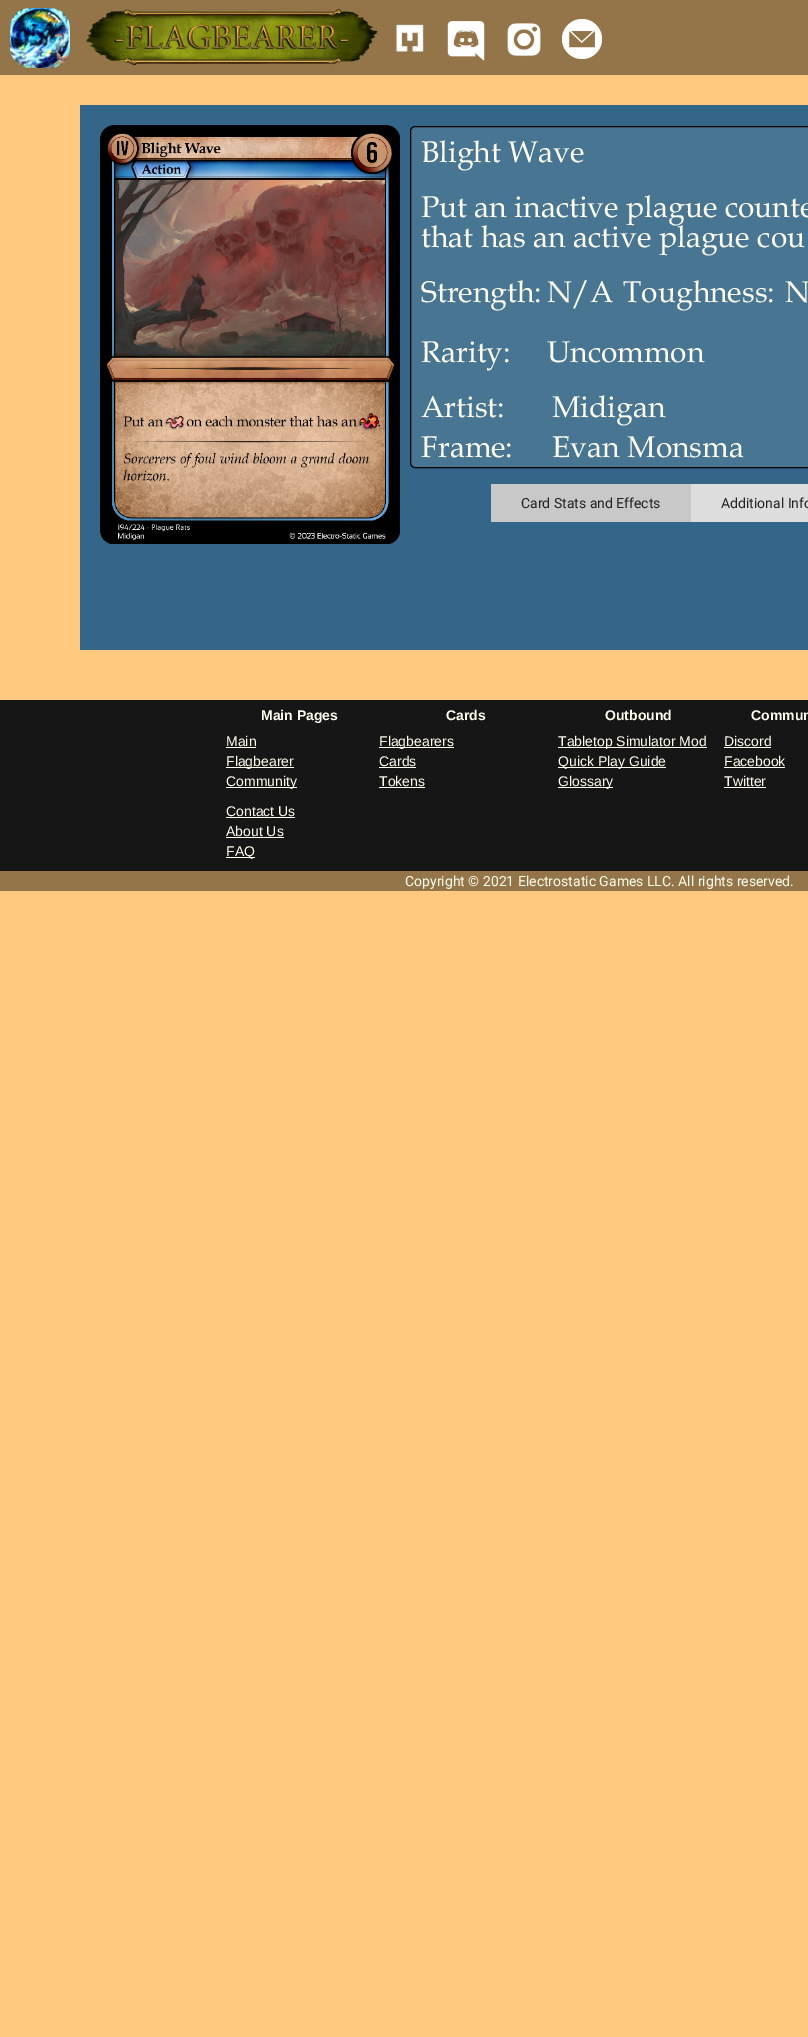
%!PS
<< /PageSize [808 2037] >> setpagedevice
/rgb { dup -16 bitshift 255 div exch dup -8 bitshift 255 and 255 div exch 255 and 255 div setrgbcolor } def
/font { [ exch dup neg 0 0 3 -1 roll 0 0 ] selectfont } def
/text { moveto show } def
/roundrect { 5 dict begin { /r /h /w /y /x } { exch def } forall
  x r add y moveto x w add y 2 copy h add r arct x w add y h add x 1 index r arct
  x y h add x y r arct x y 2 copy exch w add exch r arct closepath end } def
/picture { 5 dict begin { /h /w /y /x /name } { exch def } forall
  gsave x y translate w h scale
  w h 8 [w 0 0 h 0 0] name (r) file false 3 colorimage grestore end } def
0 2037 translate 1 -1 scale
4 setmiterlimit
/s1 { /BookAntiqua-Regular 30 font 16#FFFFF0 rgb } def
/s2 { /Roboto-Regular 14 font 16#222222 rgb } def
/s3 { /LiberationSans-Bold 14 font 16#FFFFF0 rgb } def
/s4 { /LiberationSans-Regular 14 font 16#FFFFF0 rgb } def
/s5 { /Roboto-Regular 14 font 16#FFFFF0 rgb } def
16#FFCA80 rgb
0 0 808 2037 rectfill
16#94754A rgb
0 0 808 75 rectfill
(pic1.raw) 10 8 60 60 picture
(pic2.raw) 86 9 292 57 picture
(pic3.raw) 396 24 28 28 picture
(pic4.raw) 447 21 38 40 picture
(pic5.raw) 507 23 34 34 picture
(pic6.raw) 562 19 40 40 picture
16#336688 rgb
80 105 728 545 rectfill
(pic7.raw) 100 125 300 419 picture
16#477592 rgb
410.5 126.5 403 341 4.5 roundrect gsave fill grestore
16#000000 rgb
stroke
s1
(Blight Wave) 421 162 text
(Put an inactive plague counte) 421 217 text
(that has an active plague cou) 421 247 text
(Strength:) 421 302 text
(N/A) 547 302 text
(Toughness:) 623 302 text
(N) 785 302 text
(Rarity:) 421 362 text
(Uncommon) 547 362 text
(Artist:) 421 417 text
(Midigan) 552 417 text
(Frame:) 421 457 text
(Evan Monsma) 552 457 text
16#C8C8C8 rgb
491 484 200 38 rectfill
s2
(Card Stats and Effects) 521 508 text
16#DDDDDD rgb
691 484 117 38 rectfill
s2
(Additional Info) 721 508 text
16#161616 rgb
0 700 808 171 rectfill
s3
(Main Pages) 261 720 text
s4
(Main) 226 746 text
226 747 30 1 rectfill
226 767 68 1 rectfill
(Flagbearer) 226 766 text
226 787 71 1 rectfill
(Community) 226 786 text
(Contact Us) 226 816 text
226 817 69 1 rectfill
(About Us) 226 836 text
226 837 58 1 rectfill
226 857 29 1 rectfill
(FAQ) 226 856 text
s3
(Cards) 446 720 text
379 747 75 1 rectfill
s4
(Flagbearers) 379 746 text
(Cards) 379 766 text
379 767 37 1 rectfill
(Tokens) 379 786 text
379 787 46 1 rectfill
s3
(Outbound) 605 720 text
558 747 149 1 rectfill
s4
(Tabletop Simulator Mod) 558 746 text
558 767 108 1 rectfill
(Quick Play Guide) 558 766 text
558 787 55 1 rectfill
(Glossary) 558 786 text
s3
(Commun) 751 720 text
s4
(Discord) 724 746 text
724 747 47 1 rectfill
(Facebook) 724 766 text
724 767 61 1 rectfill
(Twitter) 724 786 text
724 787 42 1 rectfill
16#94754A rgb
0 871 808 20 rectfill
s5
(Copyright © 2021 Electrostatic Games LLC. All rights reserved.) 405 886 text
showpage
